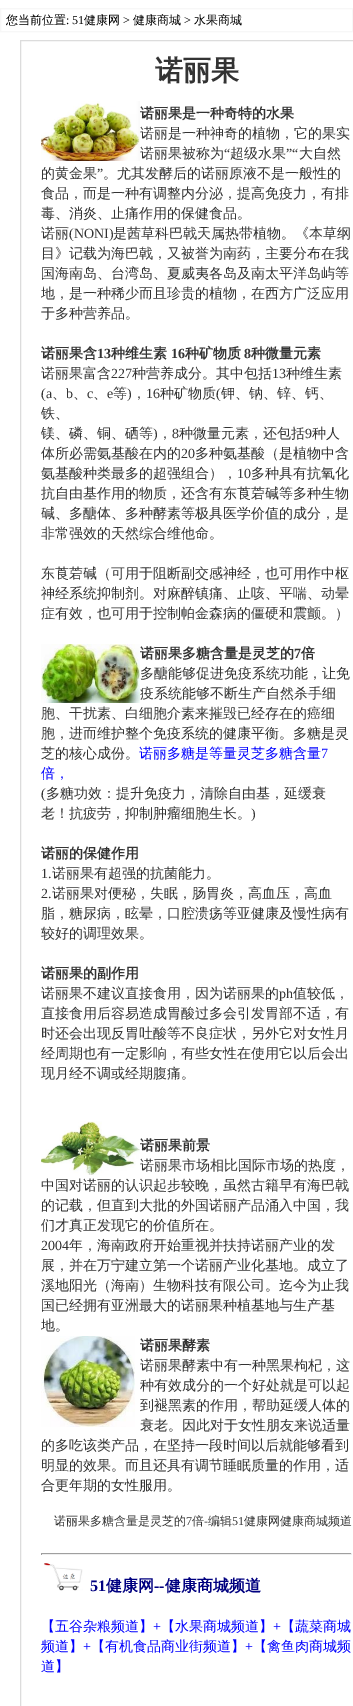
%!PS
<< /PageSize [353 1706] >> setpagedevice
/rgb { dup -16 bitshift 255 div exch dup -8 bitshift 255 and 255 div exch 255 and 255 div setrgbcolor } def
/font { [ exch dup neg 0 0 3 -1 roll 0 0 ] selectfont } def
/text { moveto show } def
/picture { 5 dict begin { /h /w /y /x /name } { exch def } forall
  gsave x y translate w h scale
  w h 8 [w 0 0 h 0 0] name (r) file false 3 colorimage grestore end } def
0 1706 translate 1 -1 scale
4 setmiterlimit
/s1 { /WenQuanYiZenHei-Medium 12 font 16#000000 rgb } def
/s2 { /LiberationSerif-Regular 12 font 16#000000 rgb } def
/s3 { /WenQuanYiZenHei-Bold 28 font 16#333333 rgb } def
/s4 { /WenQuanYiZenHei-Bold 14 font 16#333333 rgb } def
/s5 { /WenQuanYiZenHei-Medium 14 font 16#333333 rgb } def
/s6 { /LiberationSerif-Regular 14 font 16#333333 rgb } def
/s7 { /LiberationSerif-Bold 14 font 16#333333 rgb } def
/s8 { /WenQuanYiZenHei-Medium 14 font 16#0000FF rgb } def
/s9 { /LiberationSerif-Regular 14 font 16#0000FF rgb } def
/s10 { /WenQuanYiZenHei-Medium 12 font 16#333333 rgb } def
/s11 { /LiberationSerif-Regular 12 font 16#333333 rgb } def
/s12 { /LiberationSerif-Bold 16 font 16#000080 rgb } def
/s13 { /WenQuanYiZenHei-Bold 16 font 16#000080 rgb } def
16#FFFFFF rgb
0 0 353 1706 rectfill
16#F7F7F7 rgb
0.5 8.5 352 23 rectstroke
s1
(您当前位置) 6 24 text
s2
(: 51) 66 24 text
s1
(健康网) 84 24 text
s2
(>) 123 24 text
s1
(健康商城) 133 24 text
s2
(>) 184 24 text
s1
(水果商城) 194 24 text
16#DCDCDC rgb
20.5 40.5 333 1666 rectstroke
s3
(诺丽果) 155 80 text
(pic1.raw) 41 101 99 60 picture
s4
(诺丽果是一种奇特的水果) 140 118 text
s5
(诺丽是一种神奇的植物，它的果实) 140 138 text
(诺丽果被称为) 140 158 text
s6
(“) 224 158 text
s5
(超级水果) 230 158 text
s6
(”“) 286 158 text
s5
(大自然) 299 158 text
(的黄金果) 41 178 text
s6
(”) 97 178 text
s5
(。尤其发酵后的诺丽原液不是一般性的) 103 178 text
(食品，而是一种有调整内分泌，提高免疫力，有排) 41 198 text
(毒、消炎、止痛作用的保健食品。) 41 218 text
(诺丽) 41 238 text
s6
(\(NONI\)) 69 238 text
s5
(是茜草科巴戟天属热带植物。《本草纲) 113 238 text
(目》记载为海巴戟，又被誉为南药，主要分布在我) 41 258 text
(国海南岛、台湾岛、夏威夷各岛及南太平洋岛屿等) 41 278 text
(地，是一种稀少而且珍贵的植物，在西方广泛应用) 41 298 text
(于多种营养品。) 41 318 text
s4
(诺丽果含) 41 358 text
s7
(13) 97 358 text
s4
(种维生素) 111 358 text
s7
(16) 171 358 text
s4
(种矿物质) 185 358 text
s7
(8) 244 358 text
s4
(种微量元素) 251 358 text
s5
(诺丽果富含) 41 378 text
s6
(227) 111 378 text
s5
(种营养成分。其中包括) 132 378 text
s6
(13) 272 378 text
s5
(种维生素) 286 378 text
s6
(\(a) 41 398 text
s5
(、) 52 398 text
s6
(b) 66 398 text
s5
(、) 73 398 text
s6
(c) 87 398 text
s5
(、) 93 398 text
s6
(e) 107 398 text
s5
(等) 113 398 text
s6
(\)) 127 398 text
s5
(，) 132 398 text
s6
(16) 146 398 text
s5
(种矿物质) 160 398 text
s6
(\() 216 398 text
s5
(钾、钠、锌、钙、) 221 398 text
(铁、) 41 418 text
(镁、磷、铜、硒等) 41 438 text
s6
(\)) 153 438 text
s5
(，) 158 438 text
s6
(8) 172 438 text
s5
(种微量元素，还包括) 179 438 text
s6
(9) 305 438 text
s5
(种人) 312 438 text
(体所必需氨基酸在内的) 41 458 text
s6
(20) 181 458 text
s5
(多种氨基酸（是植物中含) 195 458 text
(氨基酸种类最多的超强组合），) 41 478 text
s6
(10) 237 478 text
s5
(多种具有抗氧化) 251 478 text
(抗自由基作用的物质，还含有东莨菪碱等多种生物) 41 498 text
(碱、多醣体、多种酵素等极具医学价值的成分，是) 41 518 text
(非常强效的天然综合维他命。) 41 538 text
(东莨菪碱（可用于阻断副交感神经，也可用作中枢) 41 578 text
(神经系统抑制剂。对麻醉镇痛、止咳、平喘、动晕) 41 598 text
(症有效，也可用于控制帕金森病的僵硬和震颤。）) 41 618 text
(pic2.raw) 41 644 99 59 picture
s4
(诺丽果多糖含量是灵芝的) 140 658 text
s7
(7) 294 658 text
s4
(倍) 301 658 text
s5
(多醣能够促进免疫系统功能，让免) 140 678 text
(疫系统能够不断生产自然杀手细) 140 698 text
(胞、干扰素、白细胞介素来摧毁已经存在的癌细) 41 718 text
(胞，进而维护整个免疫系统的健康平衡。多糖是灵) 41 738 text
(芝的核心成份。) 41 758 text
s8
(诺丽多糖是等量灵芝多糖含量) 139 758 text
s9
(7) 321 758 text
s8
(倍，) 41 778 text
s6
(\() 41 798 text
s5
(多糖功效：提升免疫力，清除自由基，延缓衰) 46 798 text
(老！抗疲劳，抑制肿瘤细胞生长。) 41 818 text
s6
(\)) 251 818 text
s4
(诺丽的保健作用) 41 858 text
s6
(1.) 41 878 text
s5
(诺丽果有超强的抗菌能力。) 52 878 text
s6
(2.) 41 898 text
s5
(诺丽果对便秘，失眠，肠胃炎，高血压，高血) 52 898 text
(脂，糖尿病，眩晕，口腔溃疡等亚健康及慢性病有) 41 918 text
(较好的调理效果。) 41 938 text
s4
(诺丽果的副作用) 41 978 text
s5
(诺丽果不建议直接食用，因为诺丽果的) 41 998 text
s6
(ph) 279 998 text
s5
(值较低，) 293 998 text
(直接食用后容易造成胃酸过多会引发胃部不适，有) 41 1018 text
(时还会出现反胃吐酸等不良症状，另外它对女性月) 41 1038 text
(经周期也有一定影响，有些女性在使用它以后会出) 41 1058 text
(现月经不调或经期腹痛。) 41 1078 text
(pic3.raw) 41 1121 99 54 picture
s4
(诺丽果前景) 140 1150 text
s5
(诺丽果市场相比国际市场的热度，) 140 1170 text
(中国对诺丽的认识起步较晚，虽然古籍早有海巴戟) 41 1190 text
(的记载，但直到大批的外国诺丽产品涌入中国，我) 41 1210 text
(们才真正发现它的价值所在。) 41 1230 text
s6
(2004) 41 1250 text
s5
(年，海南政府开始重视并扶持诺丽产业的发) 69 1250 text
(展，并在万宁建立第一个诺丽产业化基地。成立了) 41 1270 text
(溪地阳光（海南）生物科技有限公司。迄今为止我) 41 1290 text
(国已经拥有亚洲最大的诺丽果种植基地与生产基) 41 1310 text
(地。) 41 1330 text
(pic4.raw) 41 1336 94 91 picture
s4
(诺丽果酵素) 140 1350 text
s5
(诺丽果酵素中有一种黑果枸杞，这) 140 1370 text
(种有效成分的一个好处就是可以起) 140 1390 text
(到褪黑素的作用，帮助延缓人体的) 140 1410 text
(衰老。因此对于女性朋友来说适量) 140 1430 text
(的多吃该类产品，在坚持一段时间以后就能够看到) 41 1450 text
(明显的效果。而且还具有调节睡眠质量的作用，适) 41 1470 text
(合更年期的女性服用。) 41 1490 text
s10
(诺丽果多糖含量是灵芝的) 54 1525 text
s11
(7) 186 1525 text
s10
(倍) 192 1525 text
s11
(-) 204 1525 text
s10
(编辑) 208 1525 text
s11
(51) 232 1525 text
s10
(健康网健康商城频道) 244 1525 text
16#9F9F9F rgb
41 1553 311 1 rectfill
16#EEEEEE rgb
351 1553 1 2 rectfill
41 1554 311 1 rectfill
16#9F9F9F rgb
41 1553 1 2 rectfill
(pic5.raw) 44 1563 39 28 picture
s12
(51) 90 1591 text
s13
(健康网) 106 1591 text
s12
(--) 154 1591 text
s13
(健康商城频道) 165 1591 text
s8
(【五谷杂粮频道】) 41 1631 text
s9
(+) 153 1631 text
s8
(【水果商城频道】) 161 1631 text
s9
(+) 273 1631 text
s8
(【蔬菜商城) 281 1631 text
(频道】) 41 1651 text
s9
(+) 83 1651 text
s8
(【有机食品商业街频道】) 91 1651 text
s9
(+) 245 1651 text
s8
(【禽鱼肉商城频) 253 1651 text
(道】) 41 1671 text
showpage
